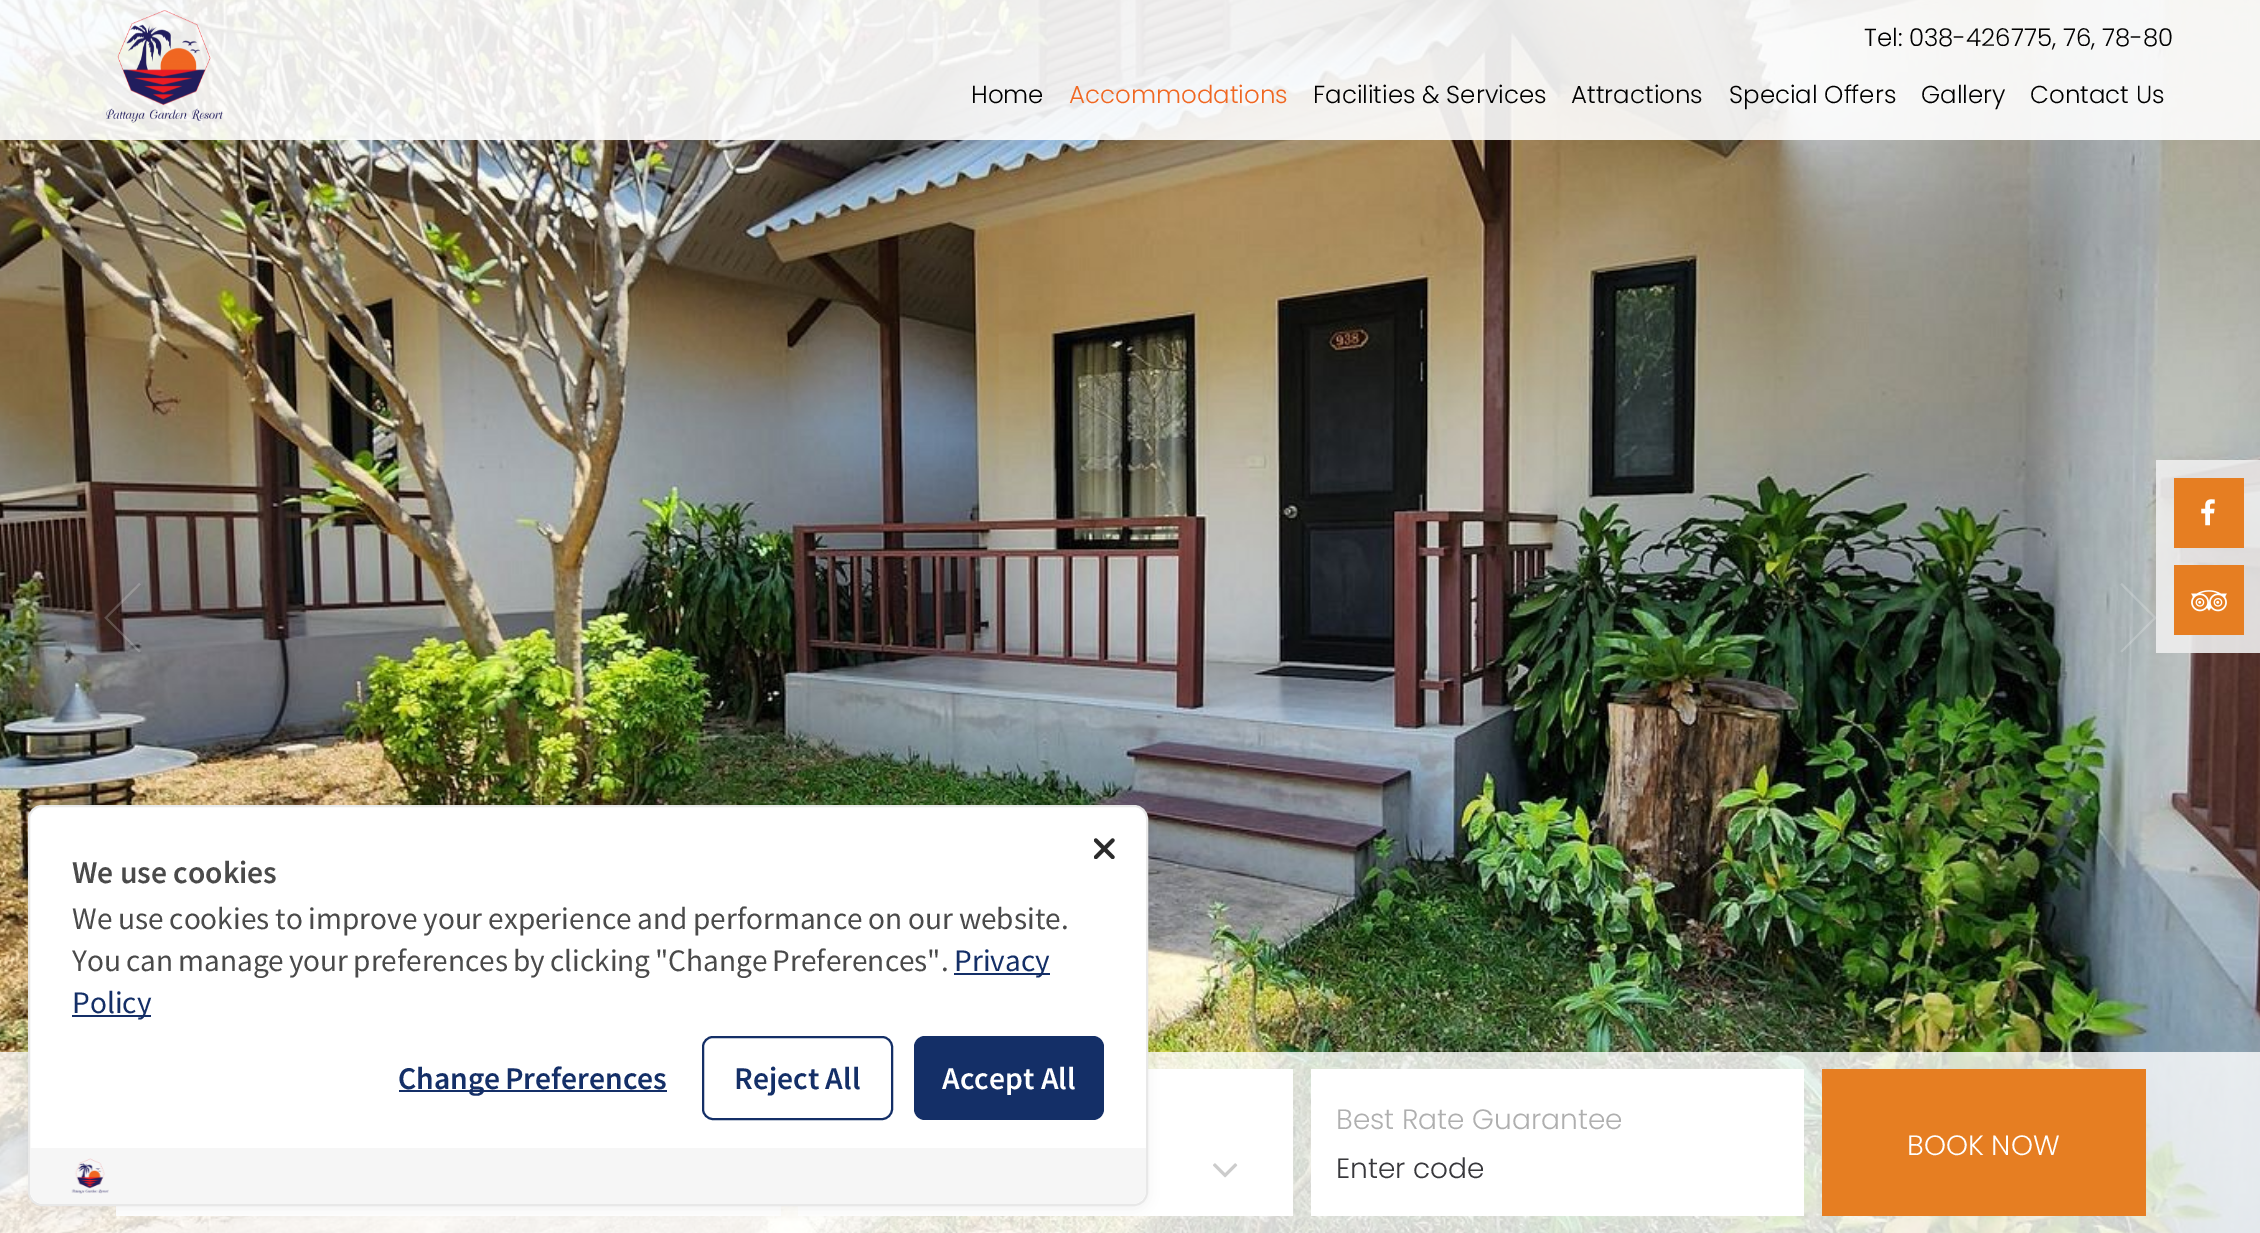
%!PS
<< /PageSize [2260 1233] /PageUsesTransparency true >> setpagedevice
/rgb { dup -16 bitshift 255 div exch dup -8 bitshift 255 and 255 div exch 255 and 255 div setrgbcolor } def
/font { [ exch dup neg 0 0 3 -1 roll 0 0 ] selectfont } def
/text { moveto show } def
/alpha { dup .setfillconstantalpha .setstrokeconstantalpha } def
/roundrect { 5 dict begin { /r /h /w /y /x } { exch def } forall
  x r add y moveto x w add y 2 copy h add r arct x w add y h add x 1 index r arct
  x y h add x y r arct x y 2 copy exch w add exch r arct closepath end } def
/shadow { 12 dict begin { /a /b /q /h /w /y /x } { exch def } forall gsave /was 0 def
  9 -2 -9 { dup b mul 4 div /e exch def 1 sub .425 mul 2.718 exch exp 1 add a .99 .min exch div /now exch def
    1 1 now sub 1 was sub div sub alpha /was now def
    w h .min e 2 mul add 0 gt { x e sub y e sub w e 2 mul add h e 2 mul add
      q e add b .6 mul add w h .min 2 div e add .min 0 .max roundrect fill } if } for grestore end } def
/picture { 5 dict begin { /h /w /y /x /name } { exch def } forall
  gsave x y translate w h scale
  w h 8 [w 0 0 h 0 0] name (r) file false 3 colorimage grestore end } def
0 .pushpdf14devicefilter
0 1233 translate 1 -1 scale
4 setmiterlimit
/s1 { /Poppins-Light 24.5 font 16#000000 rgb } def
/s2 { /Poppins-Light 24.5 font 16#F06721 rgb } def
/s3 { /NotoSansJP-SemiBold 28 font 16#4A4A4A rgb } def
/s4 { /NotoSansJP-Regular 28 font 16#142F67 rgb } def
/s5 { /NotoSansJP-SemiBold 28 font 16#142F67 rgb } def
/s6 { /NotoSansJP-SemiBold 28 font 16#FFFFFF rgb } def
/s7 { /Poppins-Light 28 font 16#AFAFAF rgb } def
/s8 { /Poppins-Light 28 font 16#38383C rgb } def
/s9 { /Poppins-Light 28 font 16#FFFFFF rgb } def
16#FFFFFF rgb
0 0 2260 1233 rectfill
(pic6.raw) 0 0 2260 1233 picture
0.9 alpha
0 0 2260 140 rectfill
1 alpha
(pic1.raw) 106 10 118 113 picture
s1
(Tel: 038-426775, 76, 78-80) 1864 46 text
(Home) 971 103 text
s2
(Accommodations) 1069 103 text
s1
(Facilities & Services) 1313 103 text
(Attractions) 1571 103 text
(Special Offers) 1729 103 text
(Gallery) 1921 103 text
(Contact Us) 2030 103 text
(pic8.raw) 2120 583 37 70 picture
0.9 alpha
16#EEEEEE rgb
2156 460 104 193 rectfill
1 alpha
16#E67E22 rgb
2174 478 70 70 rectfill
(pic2.raw) 2201 499 14 27 picture
2174 565 70 70 rectfill
(pic3.raw) 2191 590 36 22 picture
0.8 alpha
16#FFFFFF rgb
0 1052 2260 181 rectfill
1 alpha
798 1069 495 147 rectfill
116 1206 665 10 rectfill
16#000000 rgb
28 809 1120 400 14 7 0.05 shadow
16#FFFFFF rgb
29 806 1118 399 13 roundrect gsave fill grestore
16#E8E8E8 rgb
2 setlinewidth
stroke
(pic4.raw) 1094 838 21 21 picture
s3
(We use cookies) 72 883 text
/NotoSansJP-Regular 28 font
72 929 moveto -0.5 0 32 (We use cookies to improve your experience and performance on our website.) widthshow
72 971 moveto -1.25 0 32 (You can manage your preferences by clicking "Change Preferences".) widthshow
16#142F67 rgb
954 973 96 2 rectfill
(Privacy) 954 971 text
72 1015 79 2 rectfill
(Policy) 72 1013 text
399 1090 268 2 rectfill
/NotoSansJP-SemiBold 28 font
398 1089 moveto -2 0 32 (Change Preferences) widthshow
703 1037 189 82 10 roundrect stroke
(Reject All) 734 1089 text
914 1036 190 84 11 roundrect fill
s6
(Accept All) 942 1089 text
16#F6F6F6 rgb
30 1148 moveto 1146 1148 lineto 1146 1190 lineto 1146 1197.5 1139.5 1204 1132 1204 curveto 44 1204 lineto 36.5 1204 30 1197.5 30 1190 curveto closepath fill
(pic5.raw) 71 1158 38 36 picture
(pic7.raw) 104 583 37 70 picture
(pic9.raw) 1213 1163 25 15 picture
16#FFFFFF rgb
1311 1069 493 147 rectfill
s7
(Best Rate Guarantee) 1336 1129 text
s8
(Enter code) 1336 1178 text
16#E67E22 rgb
1822 1069 324 147 rectfill
s9
(BOOK NOW) 1907 1155 text
.poppdf14devicefilter showpage
